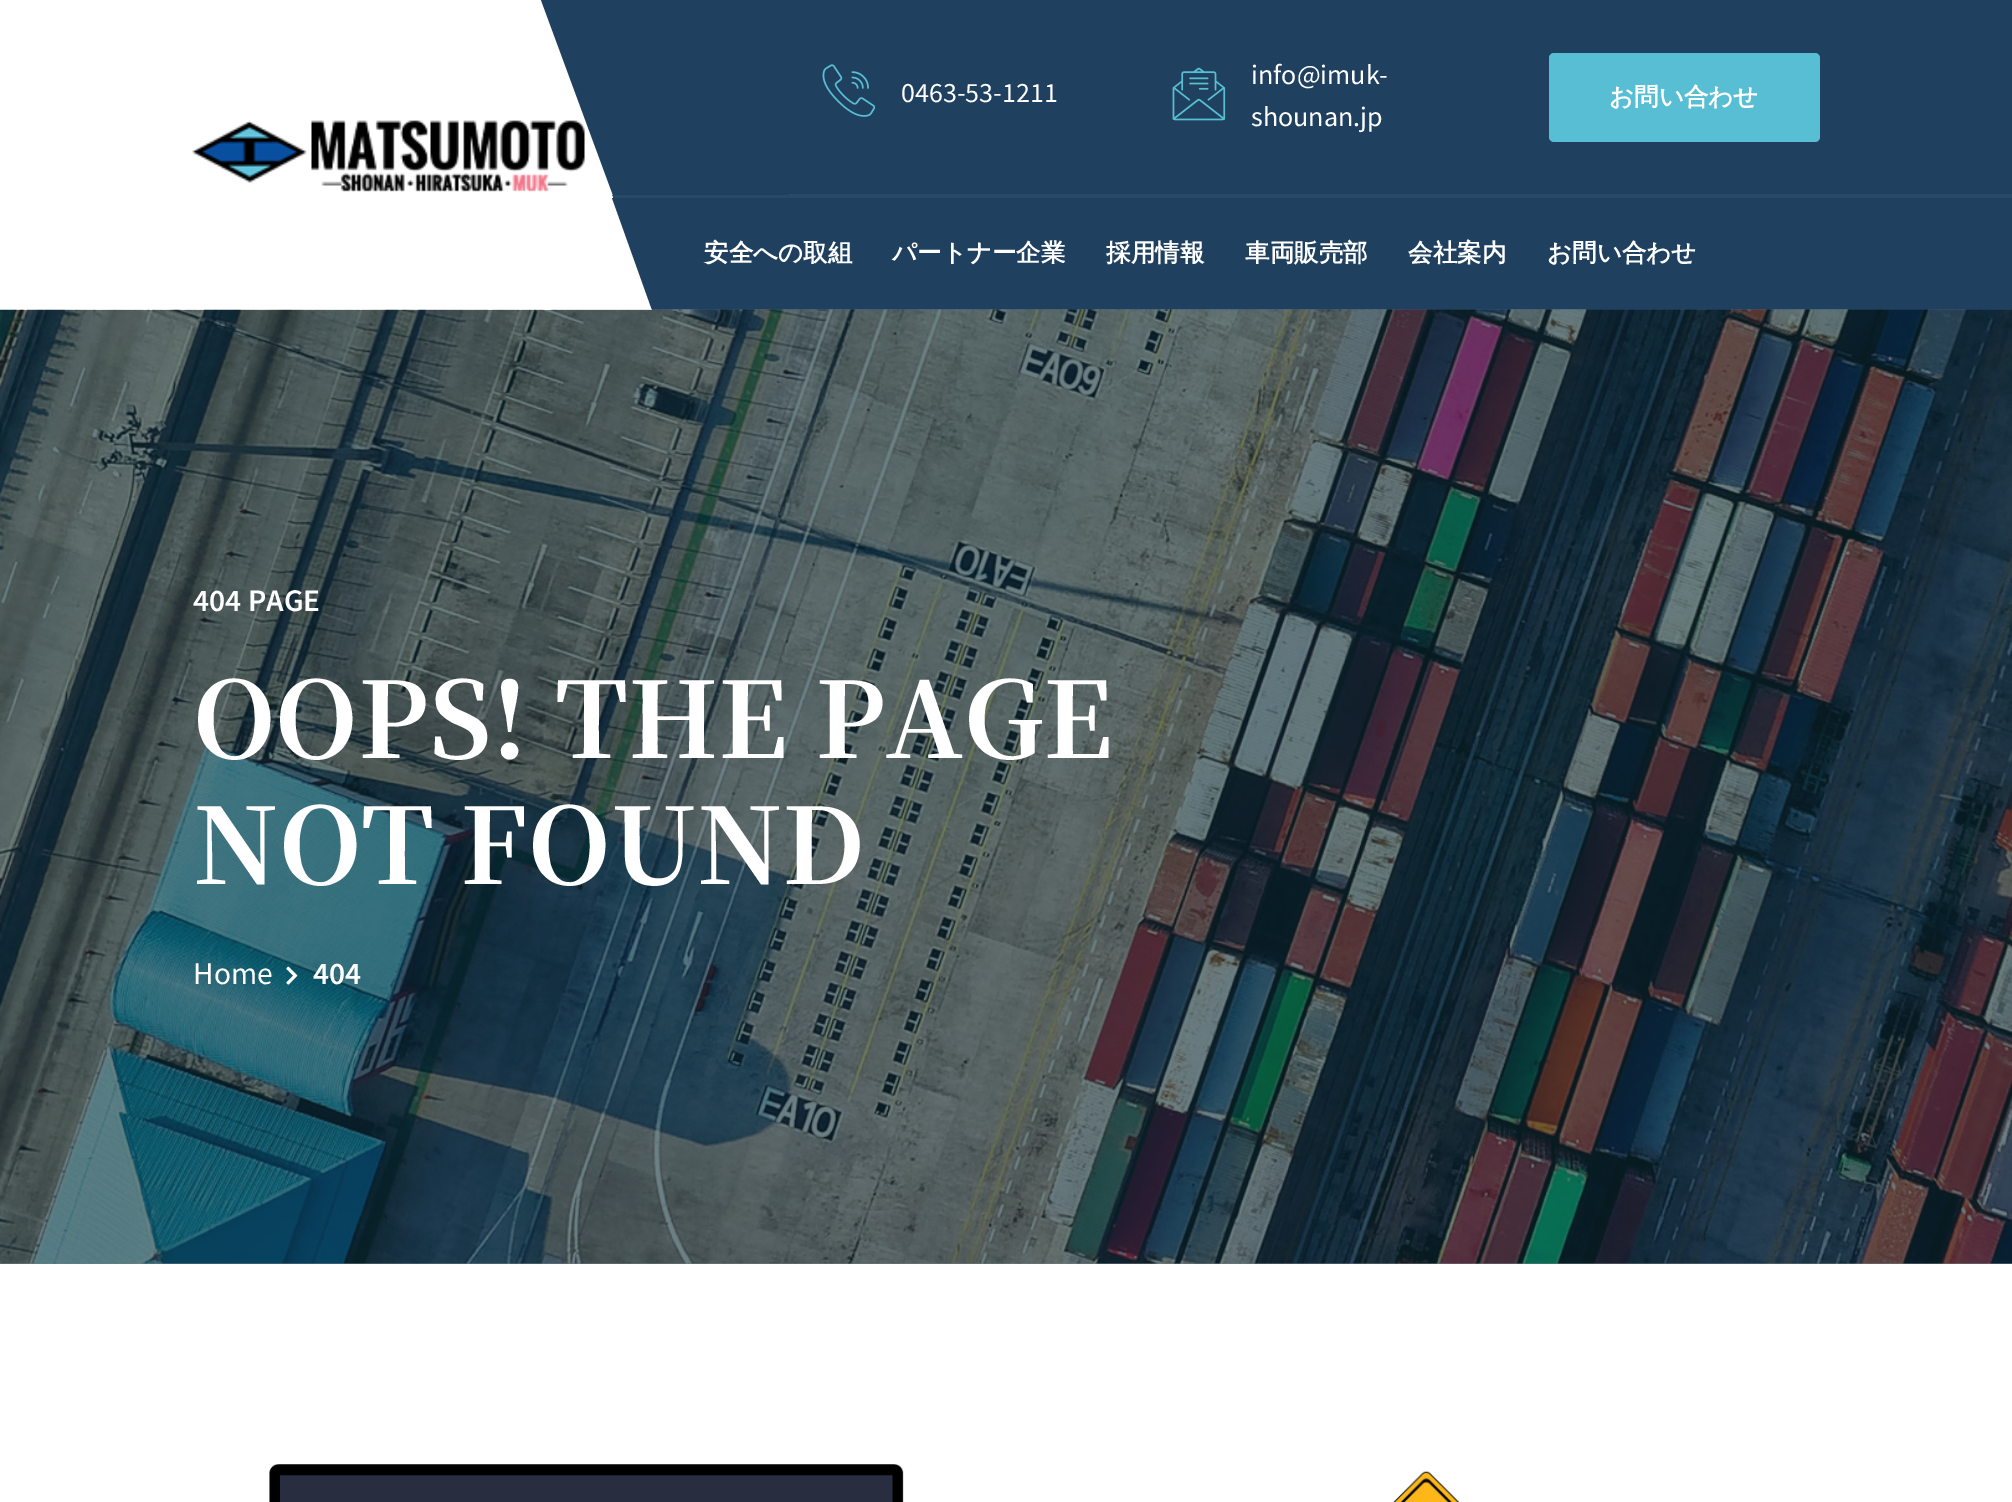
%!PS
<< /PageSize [2012 1502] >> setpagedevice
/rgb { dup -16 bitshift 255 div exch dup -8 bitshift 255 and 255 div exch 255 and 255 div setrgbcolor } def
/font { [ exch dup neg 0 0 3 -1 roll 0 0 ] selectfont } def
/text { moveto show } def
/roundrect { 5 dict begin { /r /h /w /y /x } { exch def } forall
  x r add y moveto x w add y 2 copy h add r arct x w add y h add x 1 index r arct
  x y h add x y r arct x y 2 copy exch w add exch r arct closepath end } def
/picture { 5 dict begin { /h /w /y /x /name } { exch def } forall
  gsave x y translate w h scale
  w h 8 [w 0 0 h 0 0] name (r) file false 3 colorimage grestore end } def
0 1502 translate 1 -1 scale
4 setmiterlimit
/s1 { /SourceSansPro-Regular 28 font 16#FFFFFF rgb } def
/s2 { /WenQuanYiZenHei-Bold 24.5 font 16#FFFFFF rgb } def
/s3 { /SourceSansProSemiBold-SemiBold 31.5 font 16#FFFFFF rgb } def
/s4 { /NotoSerifJP-Bold 105 font 16#FFFFFF rgb } def
/s5 { /SourceSansPro-Regular 31.5 font 16#FFFFFF rgb } def
16#FFFFFF rgb
0 0 2012 1502 rectfill
16#6D8084 rgb
0 1263 2012 1 rectfill
(pic1.raw) 192 120 393 72 picture
16#1F415F rgb
716 0 1296 194 rectfill
16#274A69 rgb
613 194 1399 4 rectfill
16#1F415F rgb
541 0 moveto 716 0 lineto 789 198 lineto 614 198 lineto closepath fill
16#274A69 rgb
612 195 moveto 787 195 lineto 789 198 lineto 614 198 lineto closepath fill
(pic2.raw) 822 64 54 53 picture
s1
(0463-53-1211) 901 102 text
(pic3.raw) 1172 67 54 54 picture
(info@imuk-) 1251 84 text
(shounan.jp) 1251 126 text
16#58BED3 rgb
1549 53 271 89 5 roundrect fill
s2
(お問い合わせ) 1609 105 text
16#1F415F rgb
713 198 1299 112 rectfill
612 198 moveto 713 198 lineto 754 310 lineto 652 310 lineto closepath fill
s2
(安全への取組) 704 261 text
(パートナー企業) 892 261 text
(採用情報) 1106 261 text
(車両販売部) 1245 261 text
(会社案内) 1408 261 text
(お問い合わせ) 1547 261 text
(pic4.raw) 0 309 2012 955 picture
s3
(404 PAGE) 193 611 text
s4
(OOPS! THE PAGE) 193 758 text
(NOT FOUND) 193 884 text
s5
(Home) 193 984 text
(pic5.raw) 286 966 12 19 picture
s3
(404) 313 984 text
(pic6.raw) 269 1464 636 38 picture
(pic7.raw) 1393 1471 67 31 picture
showpage
